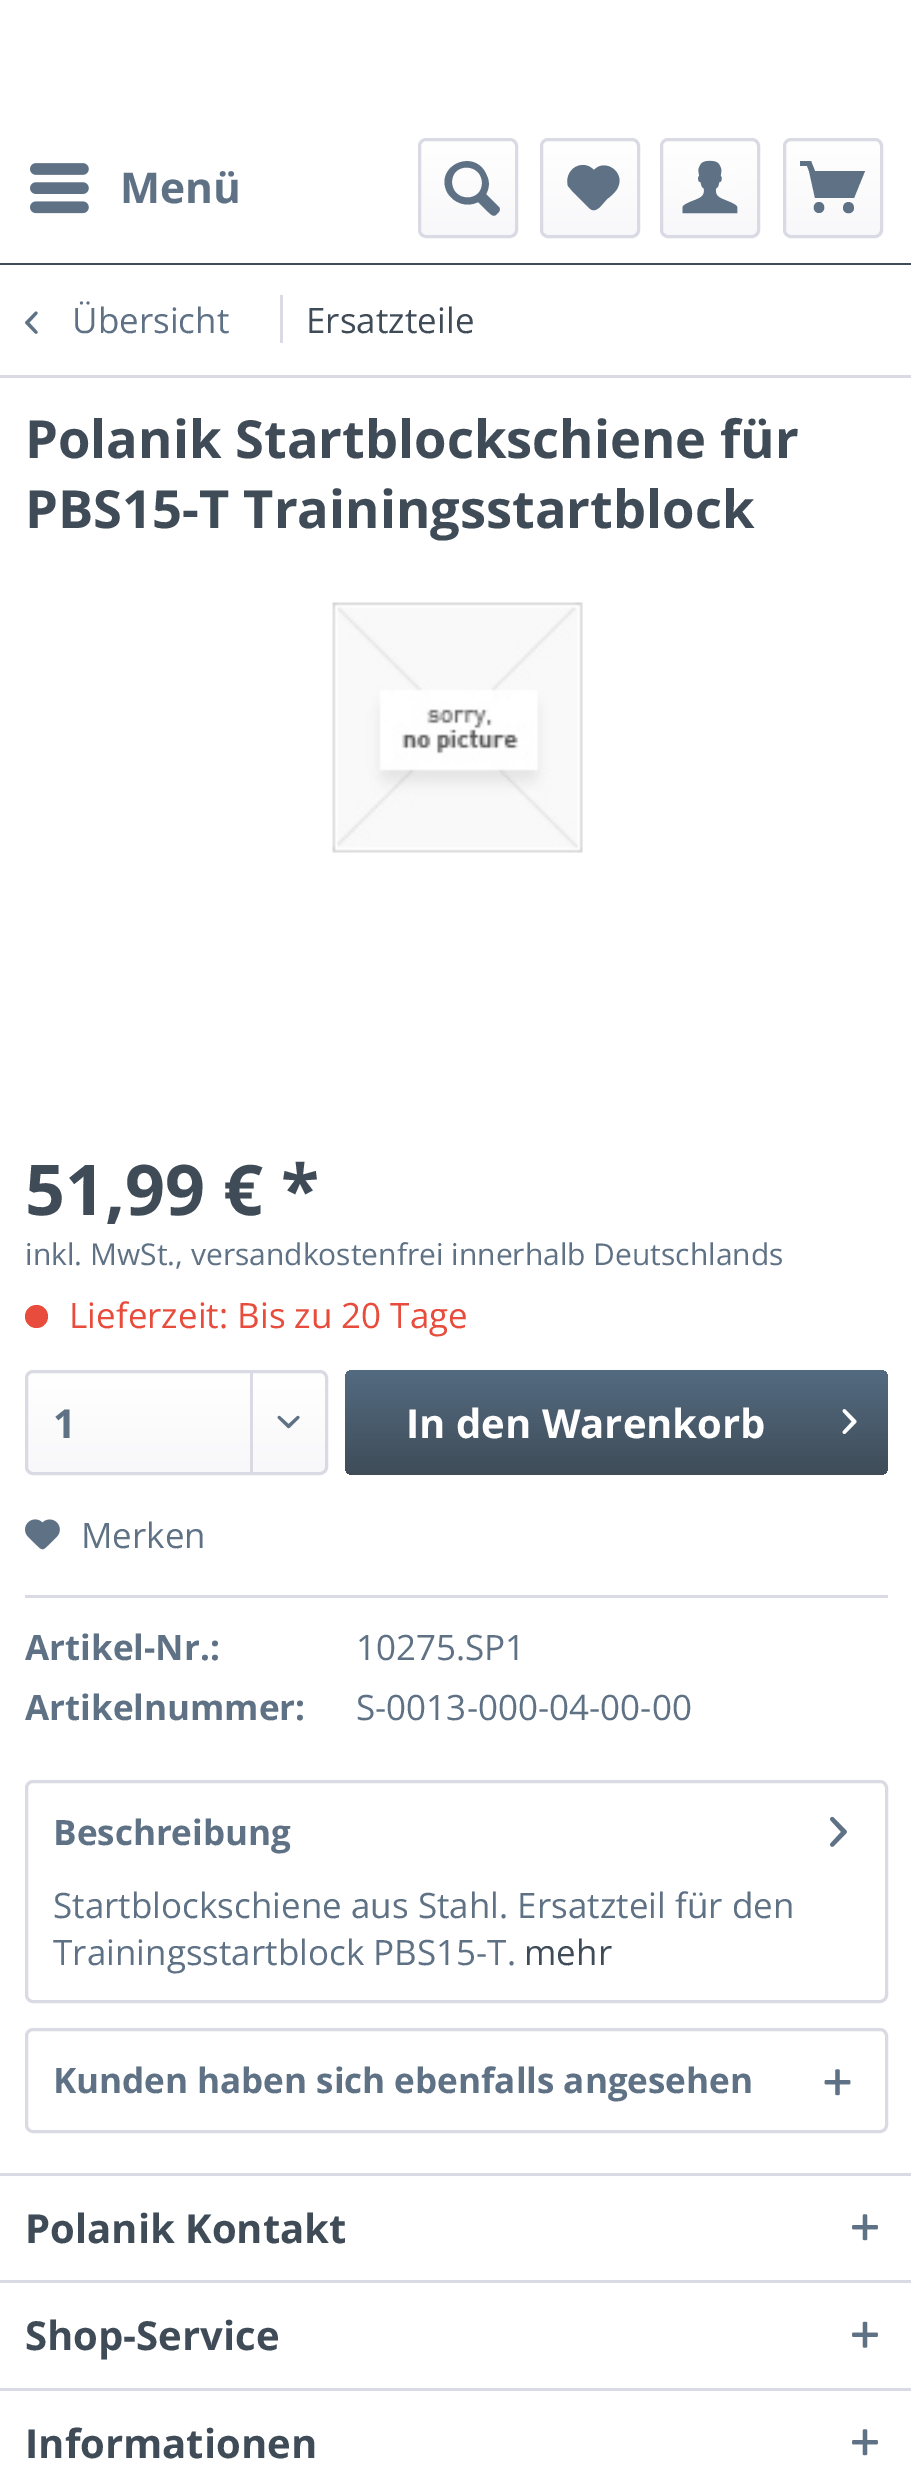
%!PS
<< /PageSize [911 2478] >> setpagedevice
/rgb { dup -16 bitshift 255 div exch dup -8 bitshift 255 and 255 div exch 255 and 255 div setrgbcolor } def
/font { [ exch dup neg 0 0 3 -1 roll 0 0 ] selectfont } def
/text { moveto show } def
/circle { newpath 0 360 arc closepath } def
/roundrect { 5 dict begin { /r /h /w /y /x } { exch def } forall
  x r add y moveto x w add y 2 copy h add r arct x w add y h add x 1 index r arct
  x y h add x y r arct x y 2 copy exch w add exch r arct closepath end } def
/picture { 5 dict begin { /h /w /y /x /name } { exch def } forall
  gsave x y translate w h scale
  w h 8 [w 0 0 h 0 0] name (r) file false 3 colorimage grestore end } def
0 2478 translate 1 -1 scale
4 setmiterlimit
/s1 { /OpenSans-Bold 42.5 font 16#5F7285 rgb } def
/s2 { /OpenSans-Regular 35 font 16#5F7285 rgb } def
/s3 { /OpenSans-Regular 35 font 16#3F4C58 rgb } def
/s4 { /OpenSans-Bold 52.5 font 16#3F4C58 rgb } def
/s5 { /OpenSans-Bold 70 font 16#3F4C58 rgb } def
/s6 { /OpenSans-Regular 30 font 16#5F7285 rgb } def
/s7 { /OpenSans-Regular 35 font 16#E74C3C rgb } def
/s8 { /OpenSans-Bold 40 font 16#5F7285 rgb } def
/s9 { /OpenSans-Bold 40 font 16#FFFFFF rgb } def
/s10 { /OpenSans-Bold 35 font 16#5F7285 rgb } def
/s11 { /OpenSans-Bold 40 font 16#3F4C58 rgb } def
16#FFFFFF rgb
0 0 911 2478 rectfill
16#3F4C58 rgb
0 263 911 2 rectfill
(pic1.raw) 30 163 59 51 picture
s1
(Menü) 120 203 text
gsave 420 140 95 95 5 roundrect clip newpath
<< /ShadingType 2 /ColorSpace /DeviceRGB /Coords [468 140 468 235] /Extend [true true] /Function << /FunctionType 2 /Domain [0 1] /C0 [1 1 1] /C1 [0.973 0.973 0.98] /N 1 >> >> shfill grestore
16#DADAE5 rgb
3 setlinewidth
419.5 139.5 97 97 6.5 roundrect stroke
16#5F7285 rgb
499 207 moveto 486 194 lineto 489 189 490 182 487 176 curveto 476 147 434 165 447 192 curveto 453 203 467 208 478 202 curveto 487 211 lineto 491 214 493 218 497 214 curveto 499 212 501 210 499 207 curveto closepath 452 182 moveto 452 162 482 163 482 183 curveto 482 203 452 202 452 182 curveto closepath fill
gsave 543 140 95 95 5 roundrect clip newpath
<< /ShadingType 2 /ColorSpace /DeviceRGB /Coords [590 140 590 235] /Extend [true true] /Function << /FunctionType 2 /Domain [0 1] /C0 [1 1 1] /C1 [0.973 0.973 0.98] /N 1 >> >> shfill grestore
16#DADAE5 rgb
541.5 139.5 97 97 6.5 roundrect stroke
16#5F7285 rgb
583 165 moveto 572 165 565 176 568 186 curveto 569 187 573 192 573 192 curveto 587 206 lineto 592 211 594 212 600 207 curveto 607 199 lineto 611 196 616 192 618 187 curveto 625 172 605 158 594 170 curveto 591 167 587 165 583 165 curveto closepath fill
gsave 663 140 95 95 5 roundrect clip newpath
<< /ShadingType 2 /ColorSpace /DeviceRGB /Coords [710 140 710 235] /Extend [true true] /Function << /FunctionType 2 /Domain [0 1] /C0 [1 1 1] /C1 [0.973 0.973 0.98] /N 1 >> >> shfill grestore
16#DADAE5 rgb
661.5 139.5 97 97 6.5 roundrect stroke
(pic2.raw) 682 160 56 54 picture
gsave 785 140 95 95 5 roundrect clip newpath
<< /ShadingType 2 /ColorSpace /DeviceRGB /Coords [833 140 833 235] /Extend [true true] /Function << /FunctionType 2 /Domain [0 1] /C0 [1 1 1] /C1 [0.973 0.973 0.98] /N 1 >> >> shfill grestore
784.5 139.5 97 97 6.5 roundrect stroke
16#5F7285 rgb
815 198 moveto 854 198 lineto 865 171 lineto 815 171 lineto 811 161 lineto 800 161 lineto 800 166 lineto 807 166 lineto 809 171 lineto closepath 819 202 moveto 812 202 812 213 819 213 curveto 826 213 826 202 819 202 curveto closepath 854 208 moveto 854 215 843 215 843 208 curveto 843 200 854 200 854 208 curveto closepath fill
16#DADAE5 rgb
0 375 911 3 rectfill
(pic3.raw) 25 311 13 23 picture
s2
(Übersicht) 72 333 text
16#DADAE5 rgb
280 295 3 48 rectfill
s3
(Ersatzteile) 306 333 text
s4
(Polanik Startblockschiene für) 25 458 text
(PBS15-T Trainingsstartblock) 25 528 text
(pic4.raw) 332 602 251 251 picture
s5
(51,99 € *) 25 1215 text
s6
(inkl. MwSt., versandkostenfrei innerhalb Deutschlands) 25 1265 text
16#E74C3C rgb
36.5 1316.5 11.5 circle fill
s7
(Lieferzeit: Bis zu 20 Tage) 69 1328 text
gsave 28 1373 297 100 5 roundrect clip newpath
<< /ShadingType 2 /ColorSpace /DeviceRGB /Coords [176 1373 176 1473] /Extend [true true] /Function << /FunctionType 2 /Domain [0 1] /C0 [1 1 1] /C1 [0.973 0.973 0.98] /N 1 >> >> shfill grestore
16#DADAE5 rgb
26.5 1371.5 300 102 6.5 roundrect stroke
s8
(1) 53 1438 text
16#DADAE5 rgb
250 1373 3 100 rectfill
(pic5.raw) 277 1415 23 14 picture
gsave 345 1370 543 105 8 roundrect clip newpath
<< /ShadingType 2 /ColorSpace /DeviceRGB /Coords [616 1370 616 1475] /Extend [true true] /Function << /FunctionType 2 /Domain [0 1] /C0 [0.325 0.42 0.506] /C1 [0.247 0.298 0.345] /N 1 >> >> shfill grestore
s9
(In den Warenkorb) 406 1438 text
(pic6.raw) 842 1409 15 25 picture
16#DADAE5 rgb
25 1595 863 3 rectfill
(pic7.raw) 25 1519 35 31 picture
s2
(Merken) 81 1548 text
s10
(Artikel-Nr.:) 25 1660 text
s2
(10275.SP1) 356 1660 text
s10
(Artikelnummer:) 25 1720 text
s2
(S-0013-000-04-00-00) 356 1720 text
16#DADAE5 rgb
26.5 1781.5 860 220 6.5 roundrect stroke
s10
(Beschreibung) 53 1845 text
(pic8.raw) 830 1816 17 31 picture
s2
(Startblockschiene aus Stahl. Ersatzteil für den) 53 1918 text
(Trainingsstartblock PBS15-T.) 53 1965 text
s3
(mehr) 524 1965 text
16#DADAE5 rgb
26.5 2029.5 860 102 6.5 roundrect stroke
s10
(Kunden haben sich ebenfalls angesehen) 53 2093 text
(pic9.raw) 824 2069 27 27 picture
16#DADAE5 rgb
0 2173 911 3 rectfill
s11
(Polanik Kontakt) 25 2243 text
(pic10.raw) 852 2214 26 27 picture
16#DADAE5 rgb
0 2280 911 3 rectfill
s11
(Shop-Service) 25 2350 text
(pic11.raw) 852 2321 26 27 picture
16#DADAE5 rgb
0 2388 911 3 rectfill
s11
(Informationen) 25 2458 text
(pic10.raw) 852 2429 26 27 picture
showpage
